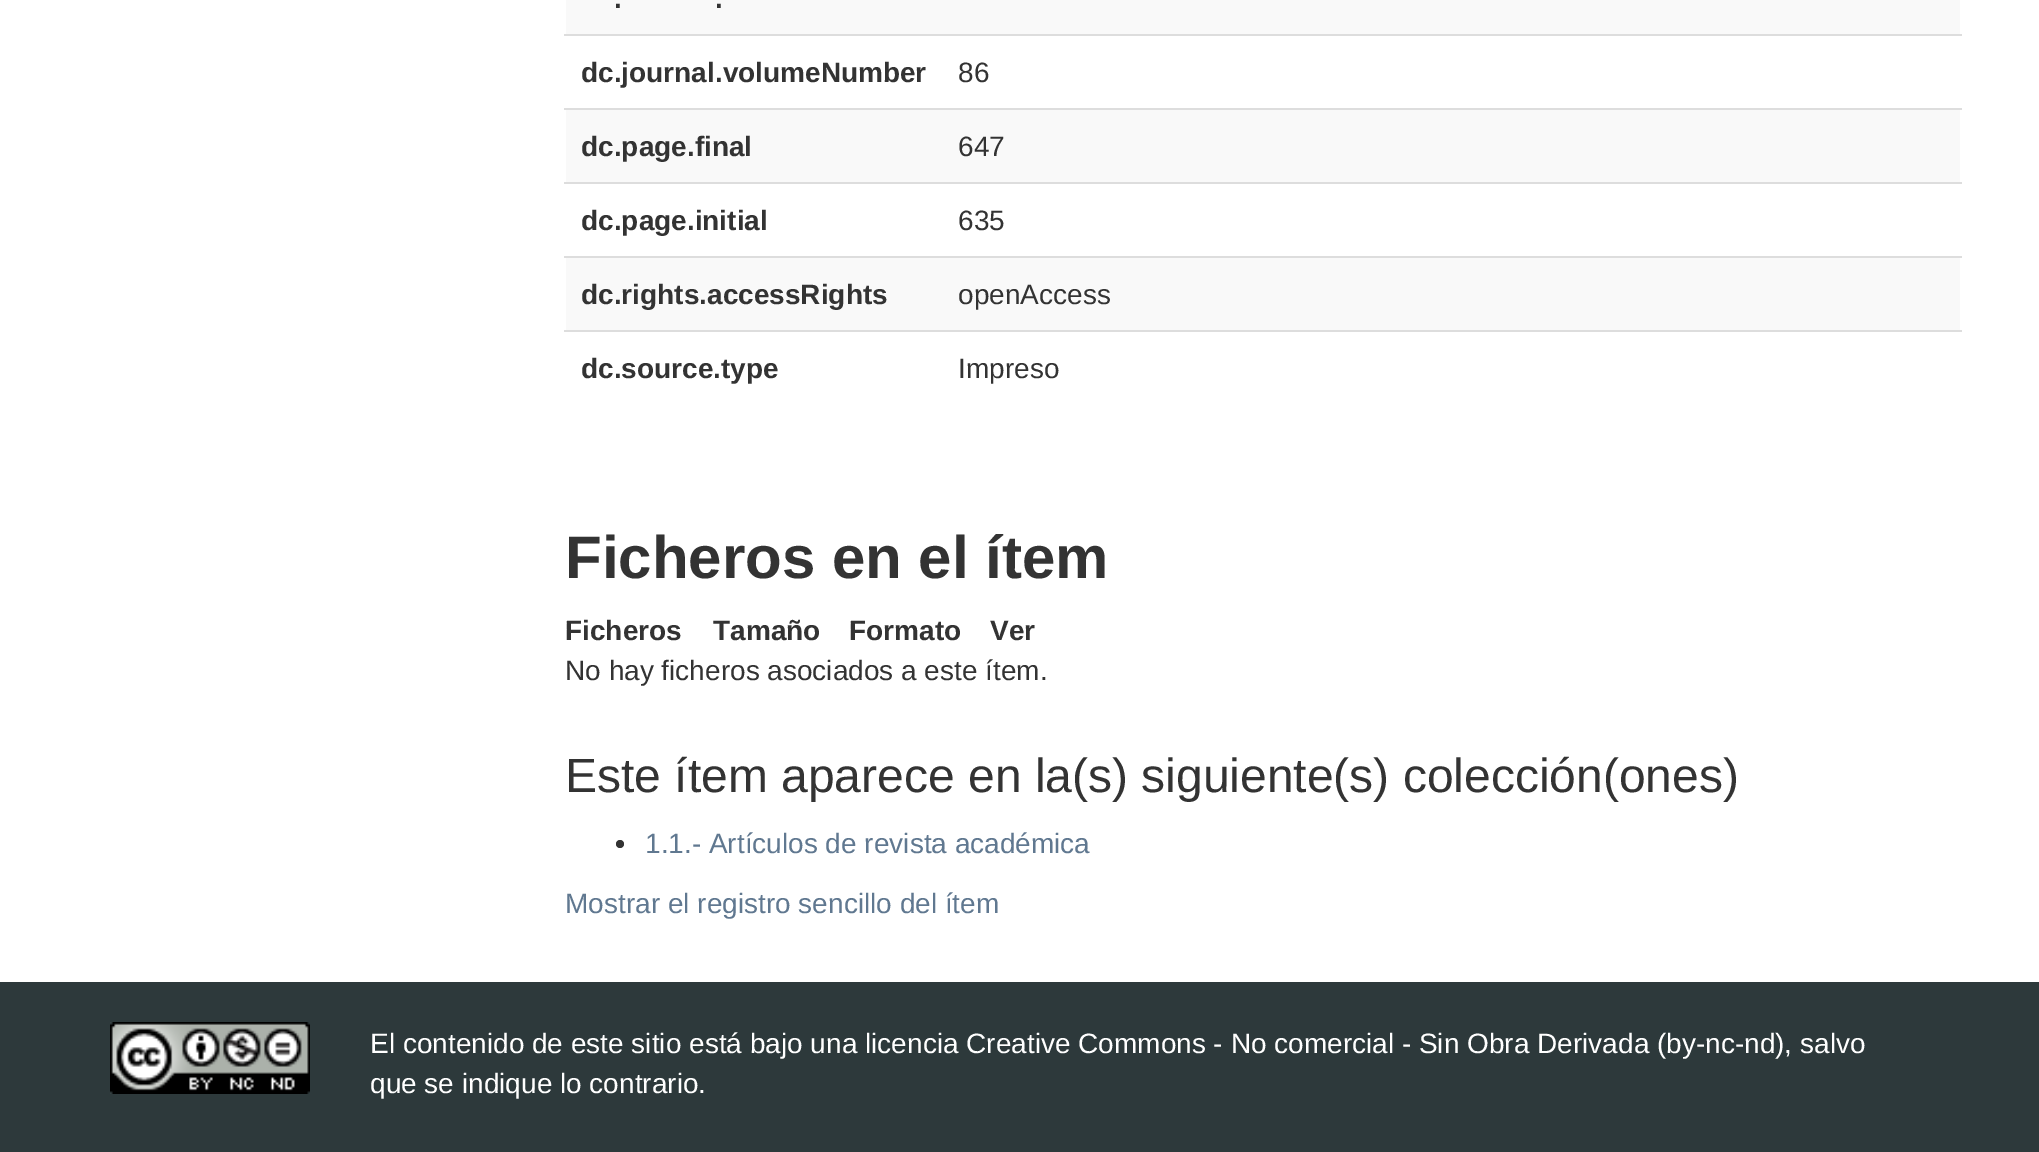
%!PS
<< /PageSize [2039 1152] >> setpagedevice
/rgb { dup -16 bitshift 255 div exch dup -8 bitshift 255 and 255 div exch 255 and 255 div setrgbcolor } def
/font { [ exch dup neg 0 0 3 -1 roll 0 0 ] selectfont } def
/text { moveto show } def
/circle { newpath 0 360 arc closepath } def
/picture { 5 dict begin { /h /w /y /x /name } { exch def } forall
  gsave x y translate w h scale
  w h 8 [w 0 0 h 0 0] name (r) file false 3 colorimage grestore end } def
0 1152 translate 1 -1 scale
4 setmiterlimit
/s1 { /LiberationSans-Bold 28 font 16#333333 rgb } def
/s2 { /LiberationSans-Regular 28 font 16#333333 rgb } def
/s3 { /LiberationSans-Bold 60 font 16#333333 rgb } def
/s4 { /LiberationSans-Regular 48 font 16#333333 rgb } def
/s5 { /LiberationSans-Regular 28 font 16#607890 rgb } def
/s6 { /LiberationSans-Regular 28 font 16#FFFFFF rgb } def
16#FFFFFF rgb
0 0 2039 1152 rectfill
16#F9F9F9 rgb
566 0 1394 34 rectfill
s1
(.) 614 8 text
(.) 715 8 text
16#DDDDDD rgb
564 34 1398 2 rectfill
s1
(dc.journal.volumeNumber) 581 82 text
s2
(86) 958 82 text
16#F9F9F9 rgb
566 110 1394 72 rectfill
16#DDDDDD rgb
564 108 1398 2 rectfill
s1
(dc.page.final) 581 156 text
s2
(647) 958 156 text
16#DDDDDD rgb
564 182 1398 2 rectfill
s1
(dc.page.initial) 581 230 text
s2
(635) 958 230 text
16#F9F9F9 rgb
566 258 1394 72 rectfill
16#DDDDDD rgb
564 256 1398 2 rectfill
s1
(dc.rights.accessRights) 581 304 text
s2
(openAccess) 958 304 text
16#DDDDDD rgb
564 330 1398 2 rectfill
s1
(dc.source.type) 581 378 text
s2
(Impreso) 958 378 text
s3
(Ficheros en el ítem) 565 578 text
s1
(Ficheros) 565 640 text
(Tamaño) 713 640 text
(Formato) 849 640 text
(Ver) 990 640 text
s2
(No hay ficheros asociados a este ítem.) 565 680 text
s4
(Este ítem aparece en la\(s\) siguiente\(s\) colección\(ones\)) 565 792 text
620 844 4 circle fill
s5
(1.1.- Artículos de revista académica) 645 853 text
(Mostrar el registro sencillo del ítem) 565 913 text
16#2D393B rgb
0 982 2039 170 rectfill
(pic1.raw) 110 1022 200 72 picture
s6
(El contenido de este sitio está bajo una licencia Creative Commons - No comercial - Sin Obra Derivada \(by-nc-nd\), salvo) 370 1053 text
(que se indique lo contrario.) 370 1093 text
showpage
